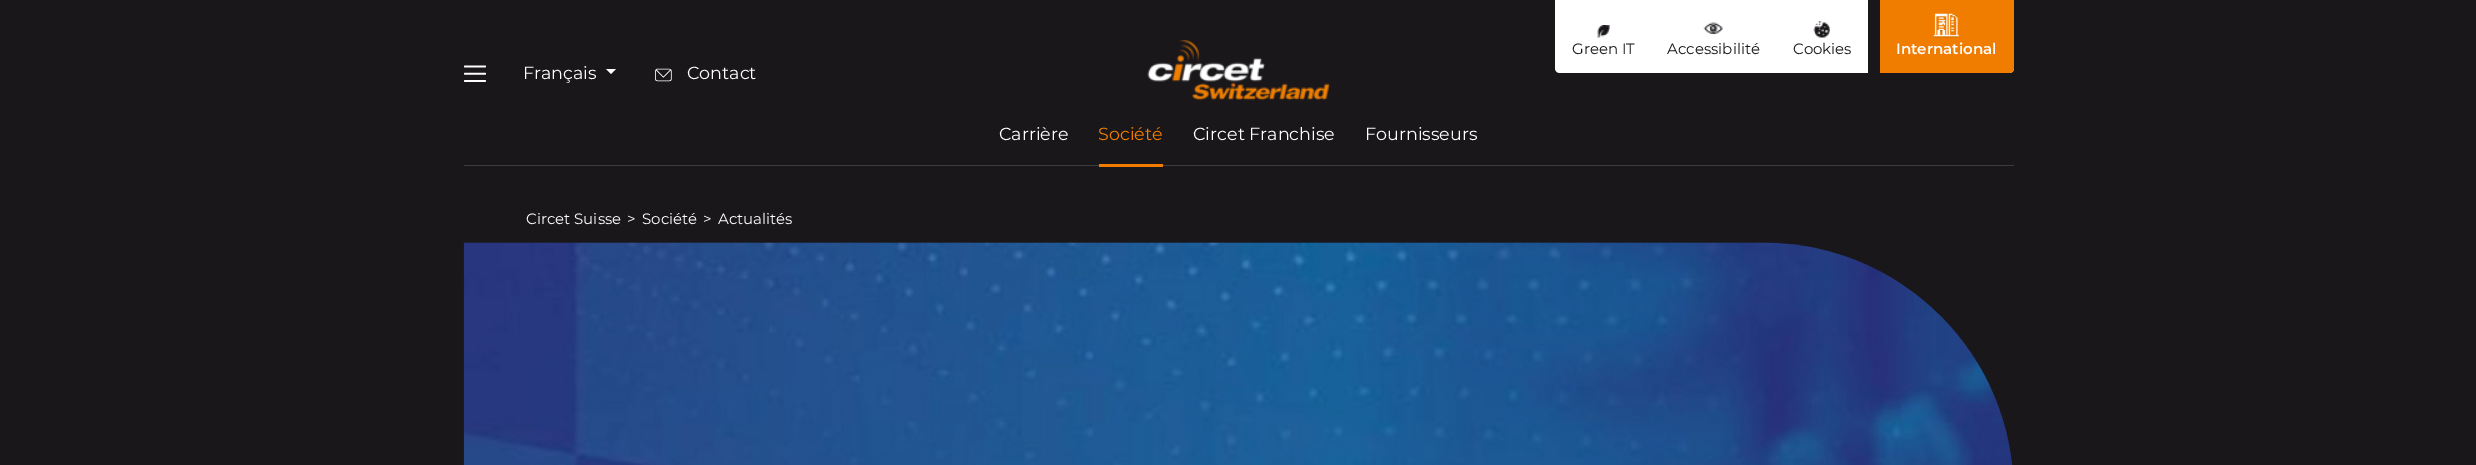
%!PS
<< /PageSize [2476 465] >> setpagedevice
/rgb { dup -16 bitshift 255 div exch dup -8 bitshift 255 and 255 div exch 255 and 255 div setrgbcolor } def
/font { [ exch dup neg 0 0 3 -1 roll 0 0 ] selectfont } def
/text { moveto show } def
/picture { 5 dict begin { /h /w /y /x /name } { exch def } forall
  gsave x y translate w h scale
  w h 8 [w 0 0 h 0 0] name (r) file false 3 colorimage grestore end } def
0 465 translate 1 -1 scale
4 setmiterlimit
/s1 { /Montserrat-Regular 15 font 16#1A171B rgb } def
/s2 { /Montserrat-SemiBold 15 font 16#FFFFFF rgb } def
/s3 { /Montserrat-Regular 17.5 font 16#FFFFFF rgb } def
/s4 { /Montserrat-Regular 17.5 font 16#F17D00 rgb } def
/s5 { /Montserrat-Regular 15 font 16#FFFFFF rgb } def
16#1A171B rgb
0 0 2476 465 rectfill
16#3F3C3F rgb
464 165 1550 1 rectfill
16#FFFFFF rgb
1555 0 moveto 2014 0 lineto 2014 68 lineto 2014 71 2012 73 2009 73 curveto 1560 73 lineto 1557 73 1555 71 1555 68 curveto closepath fill
(pic1.raw) 1597 25 13 13 picture
s1
(Green IT) 1572 54 text
(pic2.raw) 1703 22 20 13 picture
(Accessibilité) 1667 54 text
(pic3.raw) 1813 21 17 17 picture
(Cookies) 1793 54 text
16#F17D00 rgb
1868 0 moveto 2014 0 lineto 2014 68 lineto 2014 71 2012 73 2009 73 curveto 1868 73 lineto closepath fill
16#1A171B rgb
1868 0 12 73 rectfill
(pic4.raw) 1933 13 26 25 picture
s2
(International) 1896 54 text
(pic5.raw) 464 65 22 17 picture
s3
(Français) 523 79 text
606 69 moveto 616 69 lineto 611 74 lineto closepath fill
(pic6.raw) 655 68 17 14 picture
(Contact) 687 79 text
(pic7.raw) 1147 39 183 62 picture
(Carrière) 999 140 text
16#F17D00 rgb
1099 164 64 3 rectfill
(Société) 1098 140 text
s3
(Circet Franchise) 1193 140 text
(Fournisseurs) 1365 140 text
s5
(Circet Suisse) 526 224 text
(>) 627 224 text
(Société) 642 224 text
(>) 703 224 text
(Actualités) 718 224 text
(pic8.raw) 463 242 1550 223 picture
showpage
